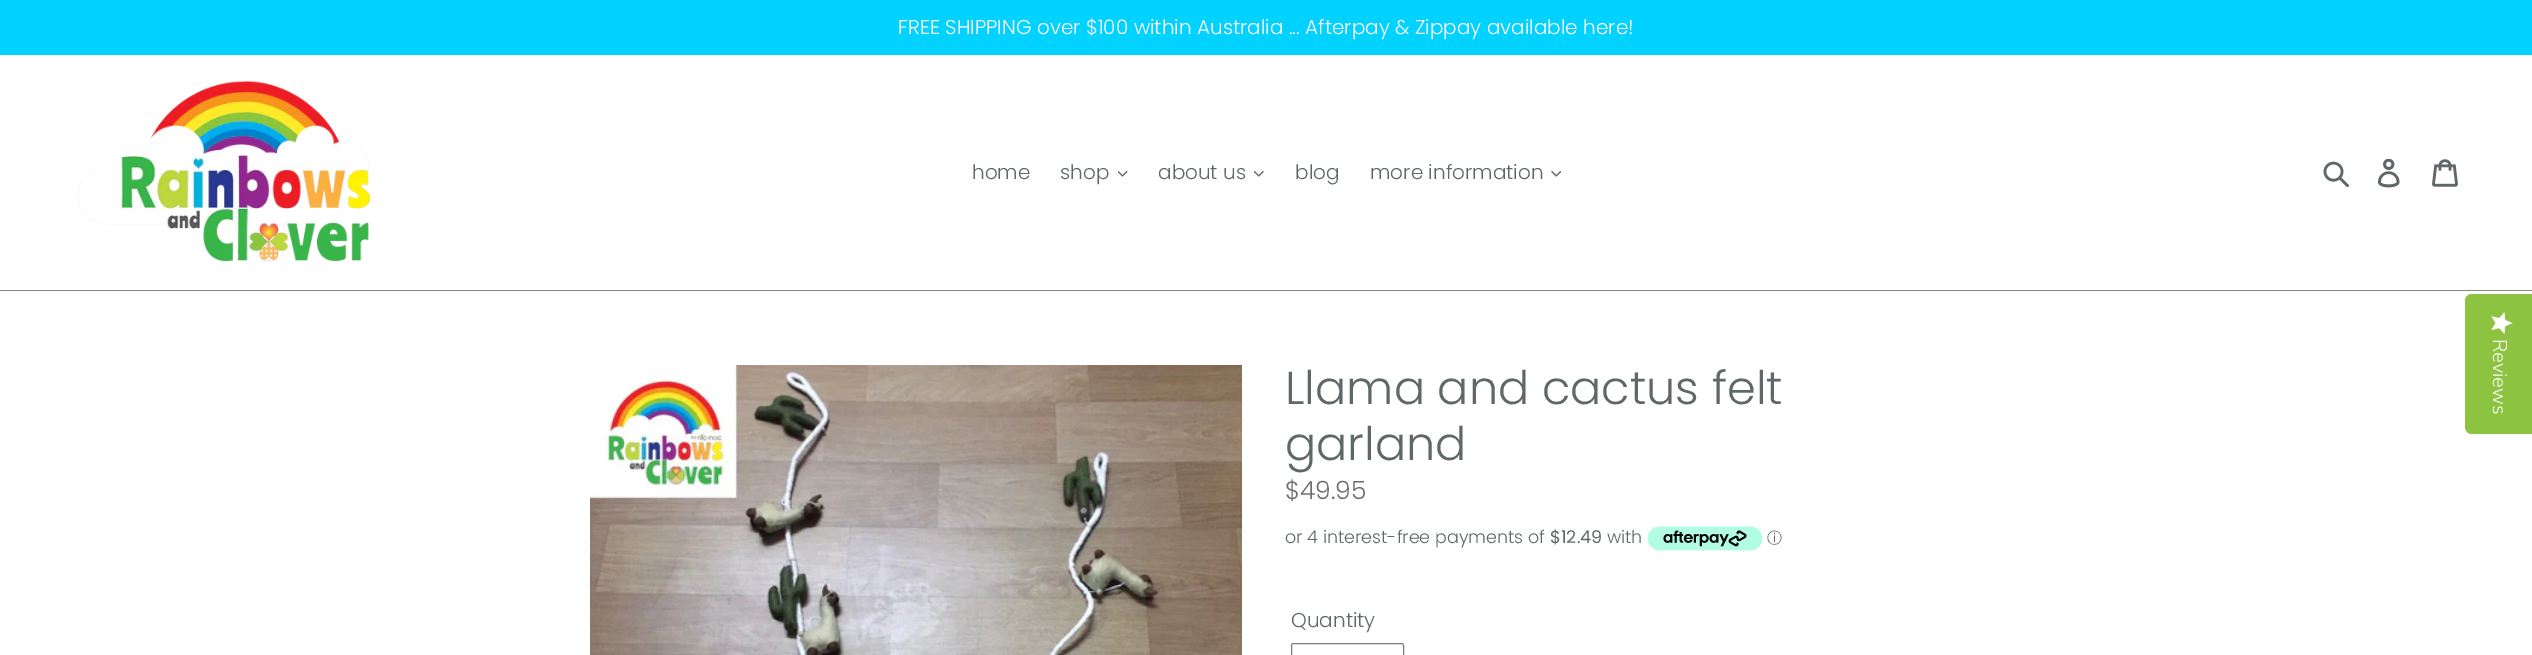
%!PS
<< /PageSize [2532 655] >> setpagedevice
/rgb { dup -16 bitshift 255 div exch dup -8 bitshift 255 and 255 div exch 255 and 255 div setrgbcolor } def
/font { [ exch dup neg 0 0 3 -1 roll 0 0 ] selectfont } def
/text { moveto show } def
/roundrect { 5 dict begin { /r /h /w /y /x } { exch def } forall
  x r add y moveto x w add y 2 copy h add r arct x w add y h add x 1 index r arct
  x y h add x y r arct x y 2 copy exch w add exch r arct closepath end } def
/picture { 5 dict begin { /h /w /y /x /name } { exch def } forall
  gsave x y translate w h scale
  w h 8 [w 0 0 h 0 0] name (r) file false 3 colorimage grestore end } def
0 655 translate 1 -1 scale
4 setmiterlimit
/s1 { /Poppins-Light 20 font 16#FFFFFF rgb } def
/s2 { /Poppins-Light 20 font 16#606768 rgb } def
/s3 { /Poppins-Light 46.25 font 16#606768 rgb } def
/s4 { /Poppins-Light 25 font 16#6D6D6D rgb } def
/s5 { /Poppins-Light 17.5 font 16#606768 rgb } def
/s6 { /Poppins-Regular 17.5 font 16#606768 rgb } def
/s7 { /WenQuanYiZenHei-Medium 15 font 16#606768 rgb } def
16#FFFFFF rgb
0 0 2532 655 rectfill
16#02D2FF rgb
0 0 2532 55 rectfill
s1
(FREE SHIPPING over $100 within Australia ... Afterpay & Zippay available here!) 898 34 text
16#888686 rgb
0 290 2532 1 rectfill
(pic1.raw) 77 80 294 182 picture
s2
(home) 972 179 text
(shop) 1060 179 text
(pic2.raw) 1118 170 10 7 picture
(about us) 1158 179 text
(pic3.raw) 1254 170 10 7 picture
(blog) 1295 179 text
(more information) 1370 179 text
(pic4.raw) 1551 171 10 6 picture
(pic5.raw) 2323 161 26 27 picture
(pic6.raw) 2378 159 22 29 picture
(pic7.raw) 2432 159 26 28 picture
(pic8.raw) 590 365 652 290 picture
s3
(Llama and cactus felt) 1285 404 text
(garland) 1285 460 text
s4
($49.95) 1285 499 text
s5
(or 4 interest-free payments of) 1285 543 text
s6
($12.49) 1550 543 text
s5
(with) 1607 543 text
(pic9.raw) 1648 526 115 25 picture
s7
(ⓘ) 1767 543 text
s2
(Quantity) 1291 627 text
16#787E7F rgb
1291.5 643.5 112 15 2 roundrect stroke
16#8CC341 rgb
2532 294 moveto 2532 434 lineto 2472 434 lineto 2468 434 2465 431 2465 426 curveto 2465 301 lineto 2465 297 2468 294 2472 294 curveto closepath fill
(pic10.raw) 2491 312 22 22 picture
/NunitoSans-Light 20 font
16#FFFFFF rgb
gsave 2493 339 translate 90 rotate 0 0 moveto (Reviews) show grestore
showpage
